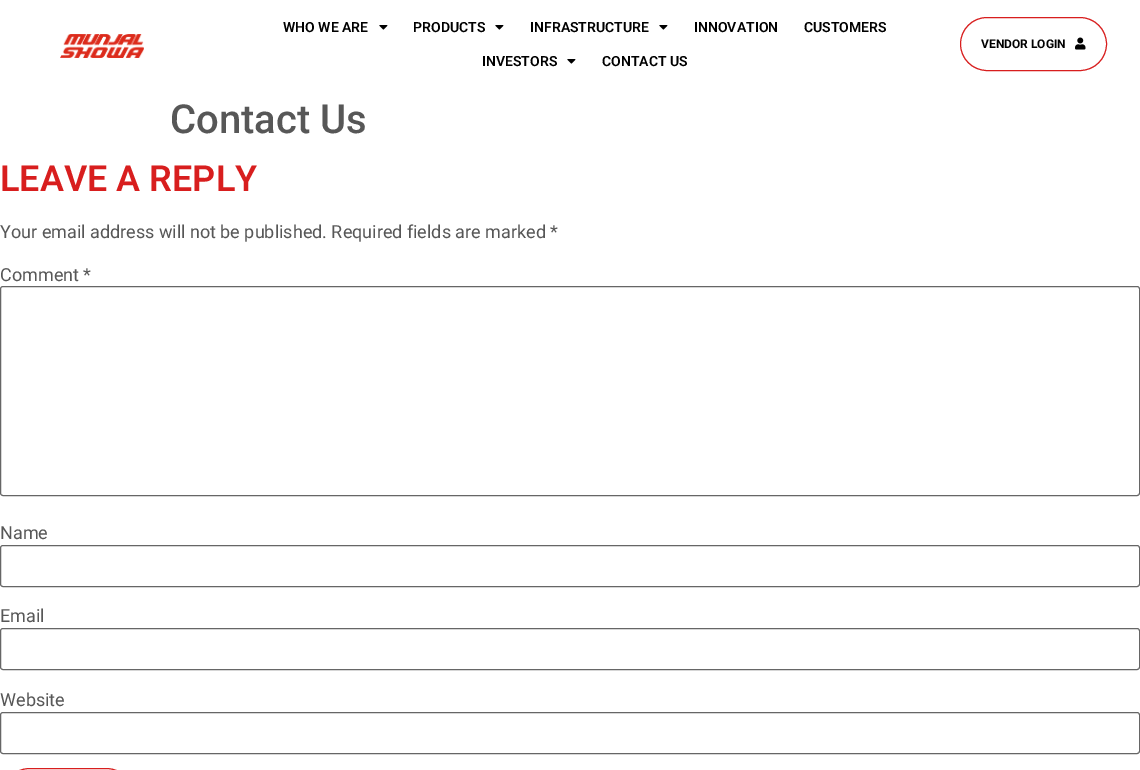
%!PS
<< /PageSize [1140 770] >> setpagedevice
/rgb { dup -16 bitshift 255 div exch dup -8 bitshift 255 and 255 div exch 255 and 255 div setrgbcolor } def
/font { [ exch dup neg 0 0 3 -1 roll 0 0 ] selectfont } def
/text { moveto show } def
/roundrect { 5 dict begin { /r /h /w /y /x } { exch def } forall
  x r add y moveto x w add y 2 copy h add r arct x w add y h add x 1 index r arct
  x y h add x y r arct x y 2 copy exch w add exch r arct closepath end } def
/picture { 5 dict begin { /h /w /y /x /name } { exch def } forall
  gsave x y translate w h scale
  w h 8 [w 0 0 h 0 0] name (r) file false 3 colorimage grestore end } def
0 770 translate 1 -1 scale
4 setmiterlimit
/s1 { /Roboto-SemiBold 14 font 16#000000 rgb } def
/s2 { /Roboto-Bold 12 font 16#000000 rgb } def
/s3 { /Roboto-Medium 40 font 16#575757 rgb } def
/s4 { /Heebo-SemiBold 36 font 16#D81E1E rgb } def
/s5 { /Roboto-Regular 18 font 16#575757 rgb } def
16#FFFFFF rgb
0 0 1140 770 rectfill
(pic1.raw) 60 34 84 24 picture
s1
(WHO WE ARE) 283 32 text
(pic2.raw) 379 25 9 5 picture
(PRODUCTS) 413 32 text
(pic2.raw) 495 25 9 5 picture
(INFRASTRUCTURE) 530 32 text
(pic2.raw) 659 25 9 5 picture
(INNOVATION) 694 32 text
(CUSTOMERS) 804 32 text
(INVESTORS) 482 66 text
(pic2.raw) 567 59 9 5 picture
(CONTACT US) 602 66 text
16#D81E1E rgb
960.5 17.5 146 53 26.5 roundrect stroke
s2
(VENDOR LOGIN) 981 48 text
(pic3.raw) 1075 37 11 13 picture
s3
(Contact Us) 170 133 text
s4
(LEAVE A REPLY) 0 191 text
s5
(Your email address will not be published. Required fields are marked *) 0 238 text
(Comment *) 0 281 text
16#666666 rgb
0.5 286.5 1139 209 2.5 roundrect stroke
s5
(Name) 0 539 text
16#666666 rgb
0.5 545.5 1139 41 2.5 roundrect stroke
s5
(Email) 0 622 text
16#666666 rgb
0.5 628.5 1139 41 2.5 roundrect stroke
s5
(Website) 0 706 text
16#666666 rgb
0.5 712.5 1139 41 2.5 roundrect stroke
16#D81E1E rgb
0.5 768.5 135 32 29.5 roundrect stroke
showpage
